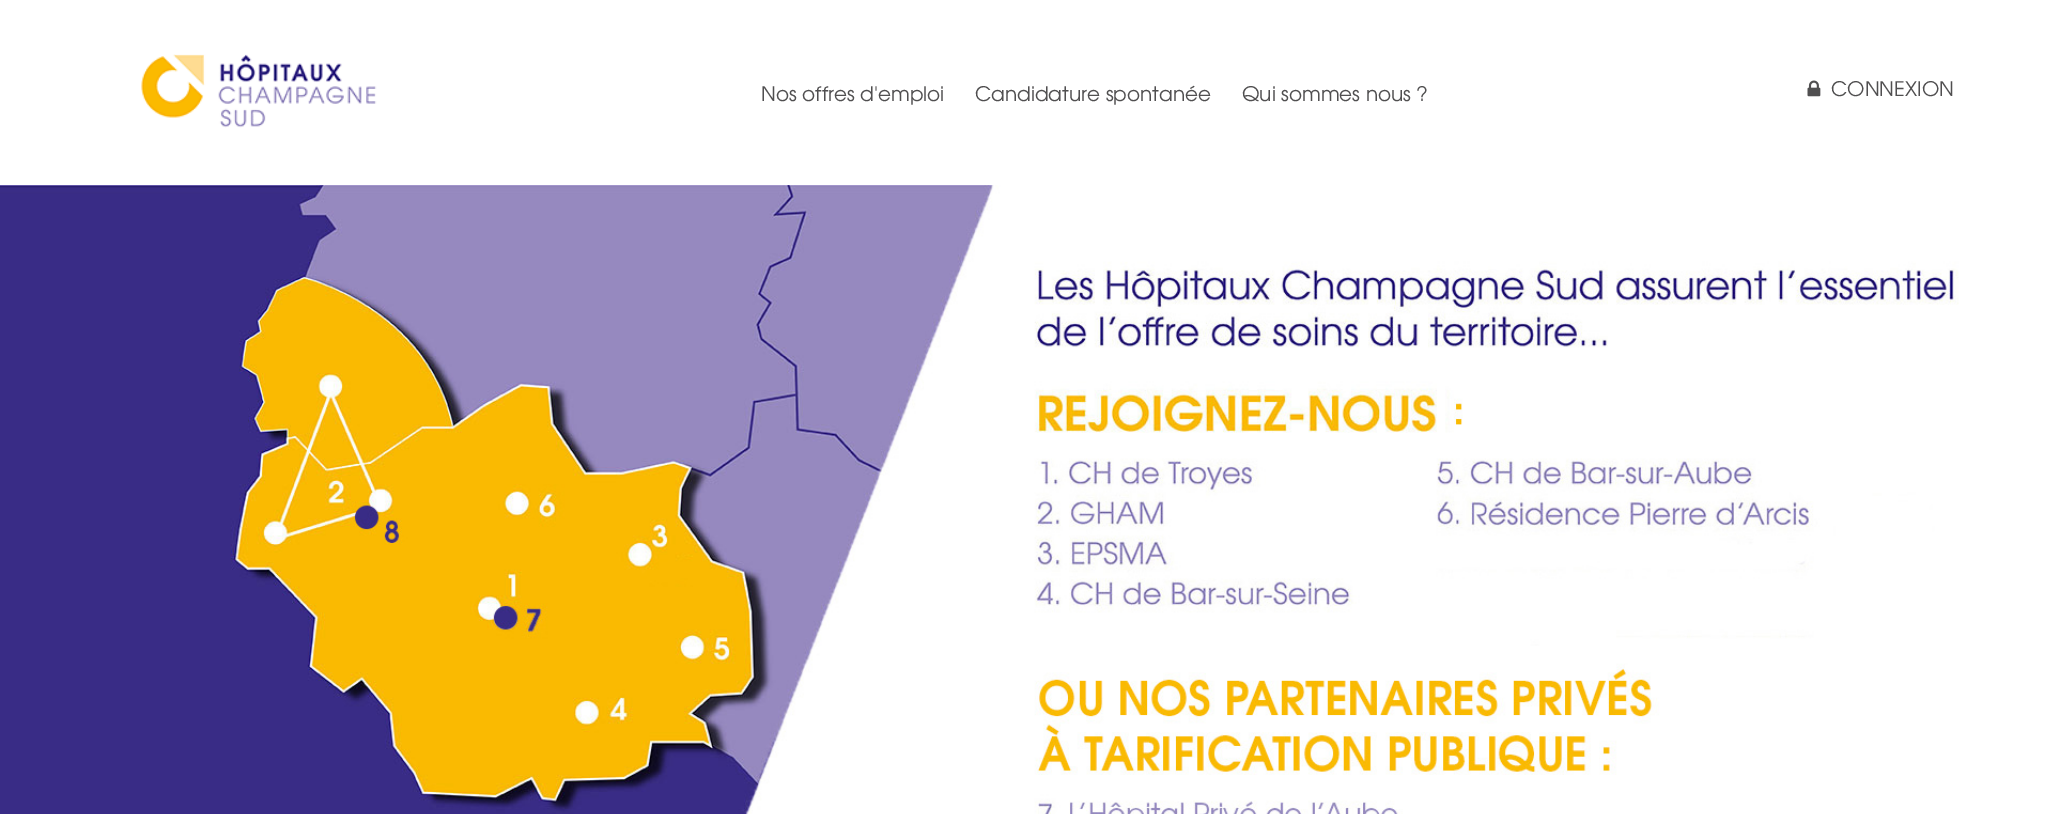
%!PS
<< /PageSize [2052 814] >> setpagedevice
/rgb { dup -16 bitshift 255 div exch dup -8 bitshift 255 and 255 div exch 255 and 255 div setrgbcolor } def
/font { [ exch dup neg 0 0 3 -1 roll 0 0 ] selectfont } def
/text { moveto show } def
/picture { 5 dict begin { /h /w /y /x /name } { exch def } forall
  gsave x y translate w h scale
  w h 8 [w 0 0 h 0 0] name (r) file false 3 colorimage grestore end } def
0 814 translate 1 -1 scale
4 setmiterlimit
/s1 { /TeXGyreAdventor-Regular 20 font 16#504F50 rgb } def
16#FFFFFF rgb
0 0 2052 814 rectfill
(pic1.raw) 141 54 236 74 picture
s1
(Nos offres d'emploi) 761 101 text
(Candidature spontanée) 975 101 text
(Qui sommes nous ?) 1242 101 text
(pic2.raw) 1807 80 14 17 picture
(CONNEXION) 1831 96 text
(pic3.raw) 0 185 1959 629 picture
showpage
